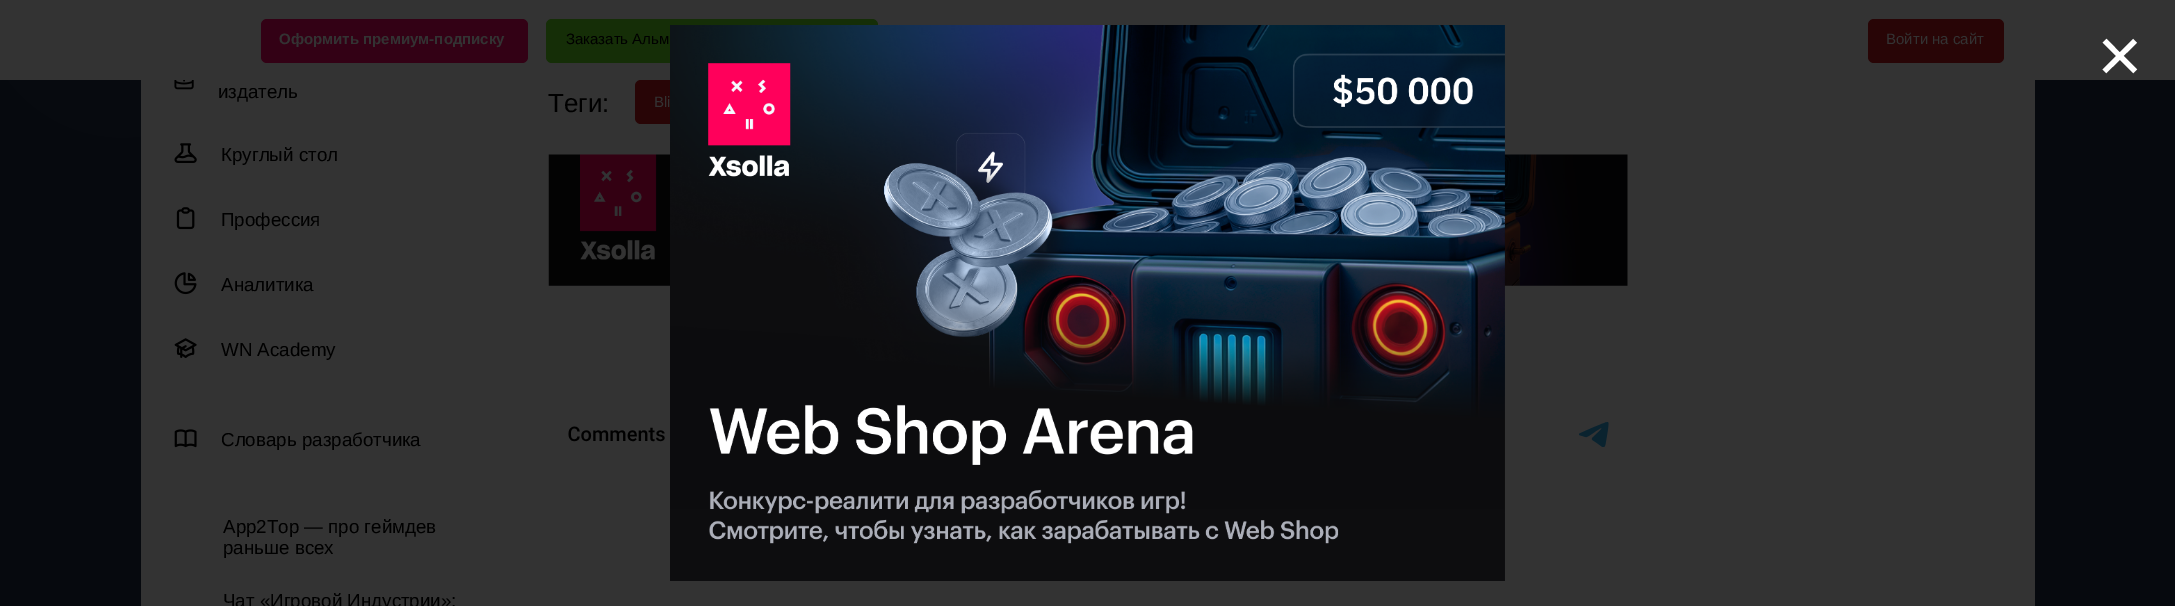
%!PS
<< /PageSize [2175 606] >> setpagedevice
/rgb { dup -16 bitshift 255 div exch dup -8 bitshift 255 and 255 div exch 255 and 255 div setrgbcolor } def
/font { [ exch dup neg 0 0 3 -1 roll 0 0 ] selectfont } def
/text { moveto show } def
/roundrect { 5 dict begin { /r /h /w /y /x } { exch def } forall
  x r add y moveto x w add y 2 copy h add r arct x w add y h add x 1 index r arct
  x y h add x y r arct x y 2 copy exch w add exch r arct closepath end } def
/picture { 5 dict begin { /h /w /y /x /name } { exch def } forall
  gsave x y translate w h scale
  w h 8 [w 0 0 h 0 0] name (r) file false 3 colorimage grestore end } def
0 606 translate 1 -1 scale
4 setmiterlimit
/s1 { /LiberationSans-Bold 15 font 16#333333 rgb } def
/s2 { /LiberationSans-Regular 15 font 16#000000 rgb } def
/s3 { /LiberationSans-Regular 15 font 16#333333 rgb } def
/s4 { /LiberationSans-Regular 78 font 16#FFFFFF rgb } def
/s5 { /LiberationSans-Regular 18.75 font 16#000000 rgb } def
/s6 { /LiberationSans-Regular 26 font 16#000000 rgb } def
16#06090E rgb
0 0 2175 606 rectfill
16#333333 rgb
0 0 2175 80 rectfill
16#330115 rgb
261 19 267 44 6 roundrect fill
s1
(Оформить премиум-подписку) 279 44 text
16#152E07 rgb
546 19 332 44 6 roundrect fill
s2
(Заказать Альм) 566 44 text
16#280506 rgb
1868 19 136 44 6 roundrect fill
s3
(Войти на сайт) 1886 44 text
141 80 1894 526 rectfill
16#280506 rgb
635 80 189 44 6 roundrect fill
(pic9.raw) 548 154 1080 132 picture
(pic10.raw) 568 422 1041 25 picture
(pic1.raw) 670 25 835 556 picture
s4
(×) 2097 82 text
(pic2.raw) 0 80 141 58 picture
(pic3.raw) 174 80 20 10 picture
s5
(издатель) 218 98 text
(pic4.raw) 174 143 23 20 picture
(Круглый стол) 221 161 text
(pic5.raw) 176 207 19 23 picture
(Профессия) 221 226 text
(pic6.raw) 174 272 23 23 picture
(Аналитика) 221 291 text
(pic7.raw) 174 338 23 20 picture
(WN Academy) 221 356 text
(pic8.raw) 174 429 23 19 picture
(Словарь разработчика) 221 446 text
(App2Top — про геймдев) 223 533 text
(раньше всех) 223 554 text
(Чат «Игровой Индустрии»:) 223 607 text
s6
(Теги:) 548 112 text
s3
(Bli) 654 107 text
showpage
